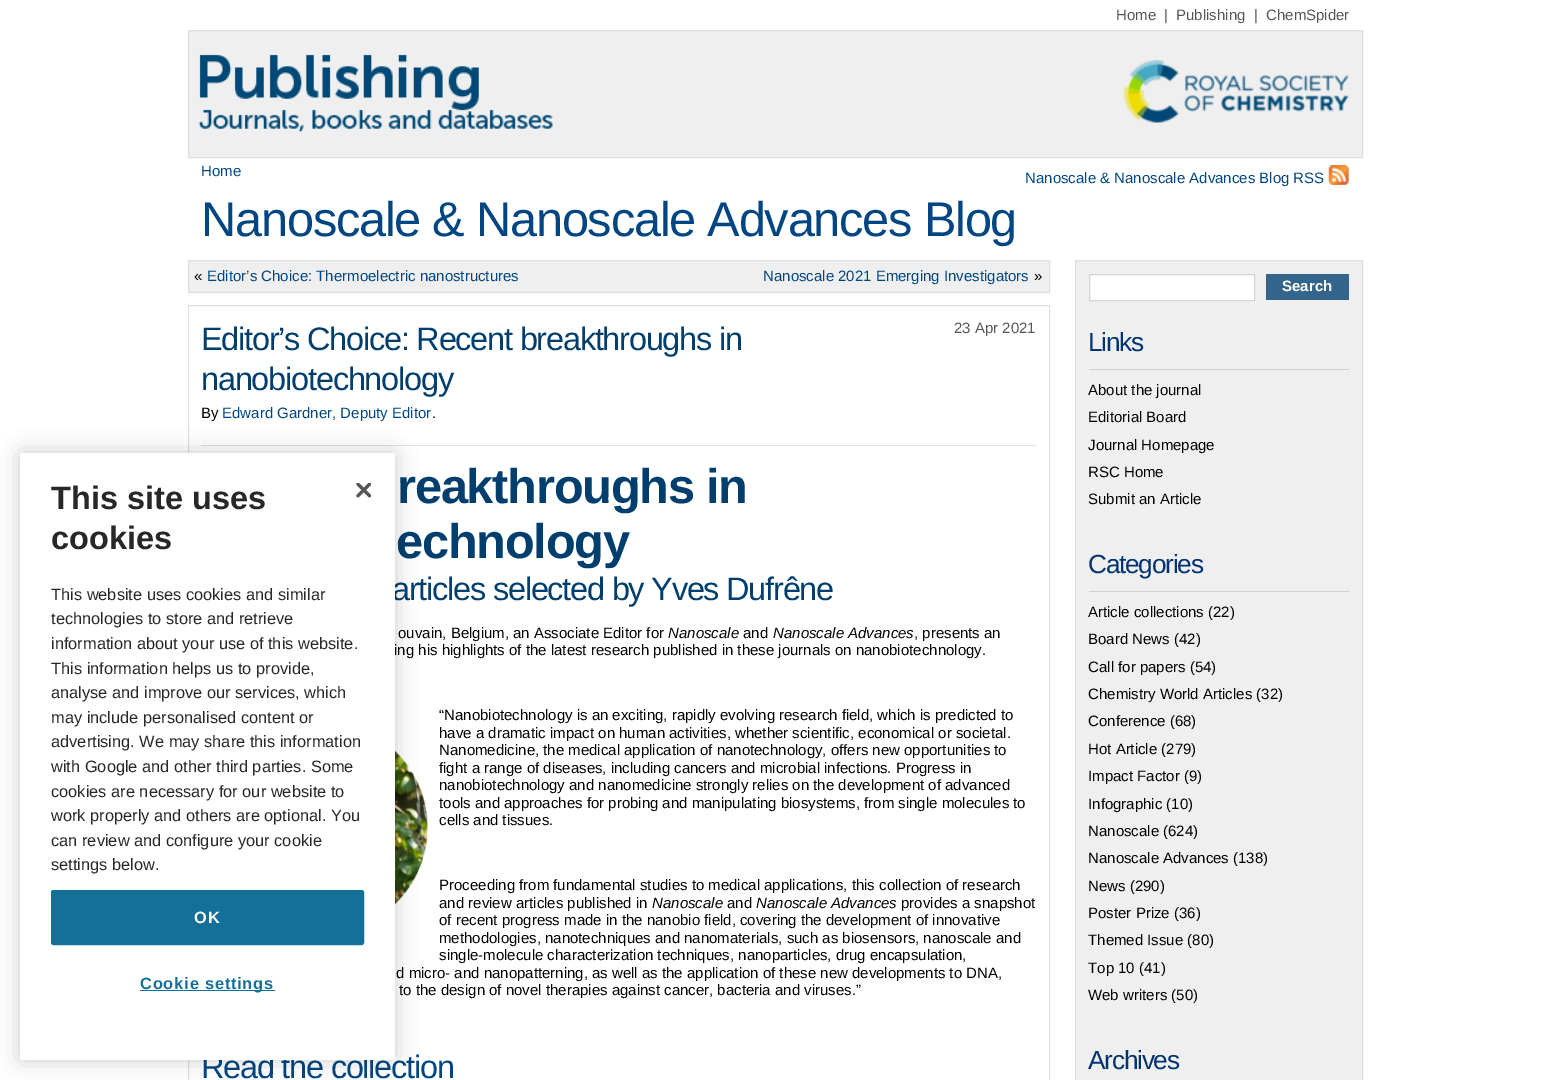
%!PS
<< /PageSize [1548 1080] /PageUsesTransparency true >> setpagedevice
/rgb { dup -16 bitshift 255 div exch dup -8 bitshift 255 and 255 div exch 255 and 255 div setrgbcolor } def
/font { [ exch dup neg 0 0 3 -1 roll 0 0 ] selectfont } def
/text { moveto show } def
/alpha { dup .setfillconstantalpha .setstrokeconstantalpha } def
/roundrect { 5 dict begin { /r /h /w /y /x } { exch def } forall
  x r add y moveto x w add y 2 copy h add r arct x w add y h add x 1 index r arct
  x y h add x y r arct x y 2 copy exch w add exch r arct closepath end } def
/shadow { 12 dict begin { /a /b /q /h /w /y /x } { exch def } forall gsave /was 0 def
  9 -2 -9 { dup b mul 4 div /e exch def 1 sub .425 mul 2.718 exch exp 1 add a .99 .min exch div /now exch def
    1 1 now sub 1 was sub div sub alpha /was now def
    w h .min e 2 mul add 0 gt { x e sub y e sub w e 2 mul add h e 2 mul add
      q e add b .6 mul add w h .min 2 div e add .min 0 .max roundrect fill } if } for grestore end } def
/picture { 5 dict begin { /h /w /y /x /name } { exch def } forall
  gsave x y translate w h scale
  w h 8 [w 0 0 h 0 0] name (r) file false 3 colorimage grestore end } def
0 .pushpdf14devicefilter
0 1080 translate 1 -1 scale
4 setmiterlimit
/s1 { /LiberationSans-Regular 15 font 16#565656 rgb } def
/s2 { /LiberationSans-Regular 15 font 16#014682 rgb } def
/s3 { /LiberationSans-Regular 15 font 16#000000 rgb } def
/s4 { /LiberationSans-Italic 15 font 16#000000 rgb } def
/s5 { /LiberationSans-Bold 15 font 16#FFFFFF rgb } def
/s6 { /LiberationSans-Bold 32.5 font 16#252729 rgb } def
/s7 { /LiberationSans-Regular 16.4 font 16#252729 rgb } def
16#FFFFFF rgb
0 0 1548 1080 rectfill
s1
(Home) 1116 20 text
(|) 1164 20 text
(Publishing) 1176 20 text
(|) 1254 20 text
(ChemSpider) 1266 20 text
16#EFEFEF rgb
188.5 30.5 moveto 1362.5 30.5 lineto 1362.5 157.5 lineto 188.5 157.5 lineto closepath gsave fill grestore
16#DFDFDF rgb
stroke
(pic1.raw) 198 54 355 78 picture
(pic2.raw) 1123 60 226 63 picture
s2
(Home) 201 176 text
(Nanoscale & Nanoscale Advances Blog RSS) 1025 183 text
(pic3.raw) 1328 165 21 20 picture
/LiberationSans-Regular 48.75 font
201 236 moveto -1.25 0 (Nanoscale & Nanoscale Advances Blog) ashow
16#EFEFEF rgb
188.5 260.5 moveto 1049.5 260.5 lineto 1049.5 292.5 lineto 188.5 292.5 lineto closepath gsave fill grestore
16#DFDFDF rgb
stroke
s3
(«) 194 281 text
s2
(Editor’s Choice: Thermoelectric nanostructures) 207 281 text
(Nanoscale 2021 Emerging Investigators) 763 281 text
s3
(») 1034 281 text
16#E1E1E1 rgb
188.5 305.5 861 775 rectstroke
/LiberationSans-Regular 32.5 font
16#003E6E rgb
201 350 moveto -1.25 0 (Editor’s Choice: Recent breakthroughs in) ashow
201 390 moveto -1.25 0 (nanobiotechnology) ashow
s1
(23 Apr 2021) 954 333 text
s3
(By) 201 418 text
s2
(Edward Gardner, Deputy Editor) 222 418 text
s3
(.) 432 418 text
16#E1E1E1 rgb
201 445 835 1 rectfill
/LiberationSans-Bold 48.75 font
16#003E6E rgb
397 503 moveto -1.25 0 (reakthroughs in) ashow
396 558 moveto -1.25 0 (echnology) ashow
/LiberationSans-Regular 32.5 font
392 600 moveto -1.25 0 (articles selected by Yves Dufrêne) ashow
s3
(ouvain, Belgium, an Associate Editor for) 398 638 text
s4
(Nanoscale) 668 638 text
s3
(and) 743 638 text
s4
(Nanoscale Advances) 773 638 text
s3
(, presents an) 914 638 text
(ing his highlights of the latest research published in these journals on nanobiotechnology.) 394 655 text
(pic4.raw) 395 750 33 155 picture
(“Nanobiotechnology is an exciting, rapidly evolving research field, which is predicted to) 439 720 text
(have a dramatic impact on human activities, whether scientific, economical or societal.) 439 738 text
(Nanomedicine, the medical application of nanotechnology, offers new opportunities to) 439 755 text
(fight a range of diseases, including cancers and microbial infections. Progress in) 439 773 text
(nanobiotechnology and nanomedicine strongly relies on the development of advanced) 439 790 text
(tools and approaches for probing and manipulating biosystems, from single molecules to) 439 808 text
(cells and tissues.) 439 825 text
(Proceeding from fundamental studies to medical applications, this collection of research) 439 890 text
(and review articles published in) 439 908 text
s4
(Nanoscale) 652 908 text
s3
(and) 727 908 text
s4
(Nanoscale Advances) 756 908 text
s3
(provides a snapshot) 901 908 text
(of recent progress made in the nanobio field, covering the development of innovative) 439 925 text
(methodologies, nanotechniques and nanomaterials, such as biosensors, nanoscale and) 439 943 text
(single-molecule characterization techniques, nanoparticles, drug encapsulation,) 439 960 text
(d micro- and nanopatterning, as well as the application of these new developments to DNA,) 396 978 text
(to the design of novel therapies against cancer, bacteria and viruses.”) 399 995 text
/LiberationSans-Regular 32.5 font
16#014682 rgb
201 1078 moveto -1.25 0 (Read the collection) ashow
16#EFEFEF rgb
1075.5 260.5 moveto 1362.5 260.5 lineto 1362.5 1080.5 lineto 1075.5 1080.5 lineto closepath gsave fill grestore
16#DFDFDF rgb
stroke
16#FFFFFF rgb
1089.5 274.5 moveto 1254.5 274.5 lineto 1254.5 300.5 lineto 1089.5 300.5 lineto closepath gsave fill grestore
16#D4D4D4 rgb
stroke
16#33648B rgb
1266 274 83 26 rectfill
s5
(Search) 1282 291 text
16#CED2D5 rgb
1089 369 260 1 rectfill
/LiberationSans-Regular 26.25 font
16#003372 rgb
1088 351 moveto -1.25 0 (Links) ashow
s3
(About the journal) 1088 395 text
(Editorial Board) 1088 422 text
(Journal Homepage) 1088 450 text
(RSC Home) 1088 477 text
(Submit an Article) 1088 504 text
16#CED2D5 rgb
1089 591 260 1 rectfill
/LiberationSans-Regular 26.25 font
16#003372 rgb
1088 573 moveto -1.25 0 (Categories) ashow
s3
(Article collections \(22\)) 1088 617 text
(Board News \(42\)) 1088 644 text
(Call for papers \(54\)) 1088 672 text
(Chemistry World Articles \(32\)) 1088 699 text
(Conference \(68\)) 1088 726 text
(Hot Article \(279\)) 1088 754 text
(Impact Factor \(9\)) 1088 781 text
(Infographic \(10\)) 1088 809 text
(Nanoscale \(624\)) 1088 836 text
(Nanoscale Advances \(138\)) 1088 863 text
(News \(290\)) 1088 891 text
(Poster Prize \(36\)) 1088 918 text
(Themed Issue \(80\)) 1088 945 text
(Top 10 \(41\)) 1088 973 text
(Web writers \(50\)) 1088 1000 text
/LiberationSans-Regular 26.25 font
16#003372 rgb
1088 1069 moveto -1.25 0 (Archives) ashow
16#000000 rgb
20 453 375 607 3 11 0.2 shadow
16#FFFFFF rgb
20 453 375 607 3 roundrect fill
s6
(This site uses) 51 509 text
(cookies) 51 549 text
s7
(This website uses cookies and similar) 51 600 text
(technologies to store and retrieve) 51 624 text
(information about your use of this website.) 51 649 text
(This information helps us to provide,) 51 674 text
(analyse and improve our services, which) 51 698 text
(may include personalised content or) 51 723 text
(advertising. We may share this information) 51 747 text
(with Google and other third parties. Some) 51 772 text
(cookies are necessary for our website to) 51 797 text
(work properly and others are optional. You) 51 821 text
(can review and configure your cookie) 51 846 text
(settings below.) 51 870 text
(pic5.raw) 356 483 15 15 picture
16#147098 rgb
51.5 890.5 312 54 2 roundrect gsave fill grestore
stroke
/LiberationSans-Bold 16.4 font
16#FFFFFF rgb
194 923 moveto 0.8 0 (OK) ashow
16#147098 rgb
140 990 135 1 rectfill
140 989 moveto 0.8 0 (Cookie settings) ashow
.poppdf14devicefilter showpage
